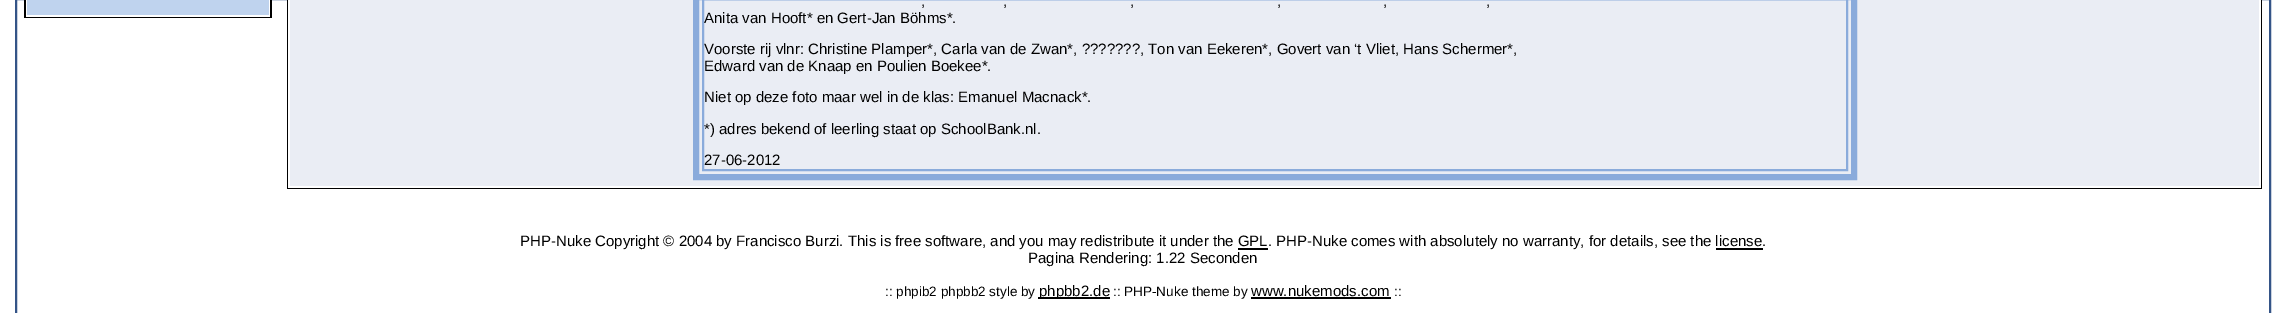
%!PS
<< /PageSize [2285 313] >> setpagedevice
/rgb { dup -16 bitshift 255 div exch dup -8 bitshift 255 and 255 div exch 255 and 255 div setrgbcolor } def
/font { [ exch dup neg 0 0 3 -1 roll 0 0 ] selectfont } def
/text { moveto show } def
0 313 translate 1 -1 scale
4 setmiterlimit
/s1 { /LiberationSans-Regular 15 font 16#000000 rgb } def
/s2 { /LiberationSans-Regular 13.5 font 16#000000 rgb } def
16#FFFFFF rgb
0 0 2285 313 rectfill
16#345487 rgb
2 setlinewidth
16 -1 2254 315 rectstroke
16#000000 rgb
24 0 248 18 rectfill
16#FFFFFF rgb
26 0 244 17 rectfill
16#BFD3EE rgb
27 0 242 15 rectfill
16#000000 rgb
287 0 1975 189 rectfill
16#FFFFFF rgb
288 0 1973 188 rectfill
16#EAEDF4 rgb
290 0 1969 186 rectfill
16#8AABDB rgb
6 setlinewidth
696 -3 1158 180 rectstroke
2 setlinewidth
703 -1 1144 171 rectstroke
s1
(,) 921 6 text
(,) 1003 6 text
(,) 1130 6 text
(,) 1277 6 text
(,) 1383 6 text
(,) 1486 6 text
(Anita van Hooft* en Gert-Jan Böhms*.) 704 23 text
(Voorste rij vlnr: Christine Plamper*, Carla van de Zwan*, ???????, Ton van Eekeren*, Govert van ‘t Vliet, Hans Schermer*,) 704 54 text
(Edward van de Knaap en Poulien Boekee*.) 704 71 text
(Niet op deze foto maar wel in de klas: Emanuel Macnack*.) 704 102 text
(*\) adres bekend of leerling staat op SchoolBank.nl.) 704 134 text
(27-06-2012) 704 165 text
(PHP-Nuke Copyright © 2004 by Francisco Burzi. This is free software, and you may redistribute it under the GPL. PHP-Nuke comes with absolutely no warranty, for details, see the license.) 520 246 text
1238 248 30 2 rectfill
1716 248 47 2 rectfill
(Pagina Rendering: 1.22 Seconden) 1028 263 text
s2
(:: phpib2 phpbb2 style by) 885 296 text
1038 297 72 2 rectfill
s1
(phpbb2.de) 1039 296 text
s2
(:: PHP-Nuke theme by) 1113 296 text
1251 297 140 2 rectfill
s1
(www.nukemods.com) 1251 296 text
s2
(::) 1394 296 text
showpage
